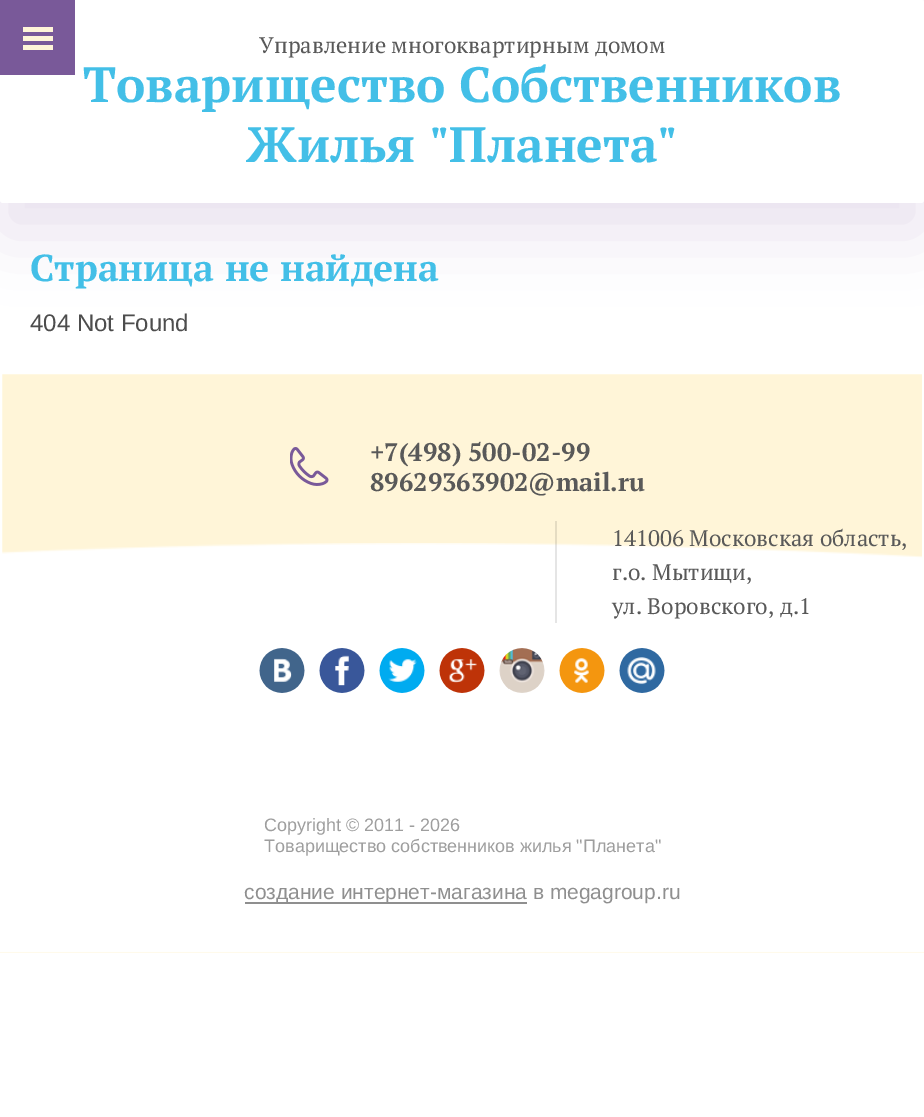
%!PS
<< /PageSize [924 1117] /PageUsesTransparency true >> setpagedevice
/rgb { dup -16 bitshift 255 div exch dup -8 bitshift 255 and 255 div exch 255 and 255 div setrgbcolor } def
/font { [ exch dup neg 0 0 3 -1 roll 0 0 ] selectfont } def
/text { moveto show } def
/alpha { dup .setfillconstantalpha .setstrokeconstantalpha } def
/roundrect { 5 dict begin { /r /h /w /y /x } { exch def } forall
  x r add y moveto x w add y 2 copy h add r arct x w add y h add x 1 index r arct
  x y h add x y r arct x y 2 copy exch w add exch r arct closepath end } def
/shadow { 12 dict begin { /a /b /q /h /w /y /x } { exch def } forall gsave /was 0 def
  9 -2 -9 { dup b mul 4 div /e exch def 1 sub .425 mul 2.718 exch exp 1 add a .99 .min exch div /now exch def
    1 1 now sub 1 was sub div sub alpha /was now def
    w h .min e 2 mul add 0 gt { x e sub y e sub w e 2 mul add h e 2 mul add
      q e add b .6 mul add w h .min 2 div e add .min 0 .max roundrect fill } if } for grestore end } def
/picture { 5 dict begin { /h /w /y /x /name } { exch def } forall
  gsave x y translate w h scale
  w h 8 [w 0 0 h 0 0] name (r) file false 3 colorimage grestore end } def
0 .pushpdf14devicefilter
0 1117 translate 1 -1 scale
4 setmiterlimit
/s1 { /PTSerif-Regular 22.5 font 16#595959 rgb } def
/s2 { /PTSerif-Bold 49.5 font 16#43BFE7 rgb } def
/s3 { /PTSerif-Bold 37.5 font 16#43BFE7 rgb } def
/s4 { /LiberationSans-Regular 24 font 16#4D4D4D rgb } def
/s5 { /PTSerif-Bold 25.5 font 16#595959 rgb } def
/s6 { /LiberationSans-Regular 18 font 16#9E9E9E rgb } def
/s7 { /LiberationSans-Regular 21 font 16#8F8F8F rgb } def
16#FFFFFF rgb
0 0 924 1117 rectfill
16#795999 rgb
0 30 924 203 3 33 0.17 shadow
16#FFFFFF rgb
0 0 924 203 3 roundrect fill
16#795999 rgb
0 0 75 75 rectfill
16#FFF5D8 rgb
23 27 30 5 rectfill
23 36 30 5 rectfill
23 45 30 5 rectfill
s1
(Управление многоквартирным домом) 259 53 text
s2
(Товарищество Собственников) 83 102 text
(Жилья "Планета") 246 162 text
s3
(Страница не найдена) 30 281 text
s4
(404 Not Found) 30 331 text
16#FFF5D8 rgb
0 374 924 579 rectfill
(pic1.raw) 0 543 924 410 picture
16#FFFFFF rgb
2 setlinewidth
1 373 922 354 rectstroke
(pic2.raw) 290 447 39 39 picture
s5
(+7\(498\) 500-02-99) 370 461 text
(89629363902@mail.ru) 370 491 text
0.1 alpha
16#000000 rgb
555 521 2 102 rectfill
1 alpha
s1
(141006 Московская область,) 612 546 text
(г.о. Мытищи,) 612 580 text
(ул. Воровского, д.1) 612 614 text
(pic3.raw) 259 648 46 45 picture
(pic4.raw) 319 648 46 45 picture
(pic5.raw) 379 648 46 45 picture
(pic6.raw) 439 648 46 45 picture
(pic7.raw) 499 648 46 45 picture
(pic8.raw) 559 648 46 45 picture
(pic9.raw) 619 648 46 45 picture
s6
(Copyright © 2011 - 2026) 264 831 text
(Товарищество собственников жилья "Планета") 264 852 text
16#8F8F8F rgb
245 902 282 2 rectfill
s7
(создание интернет-магазина в megagroup.ru) 244 899 text
.poppdf14devicefilter showpage
